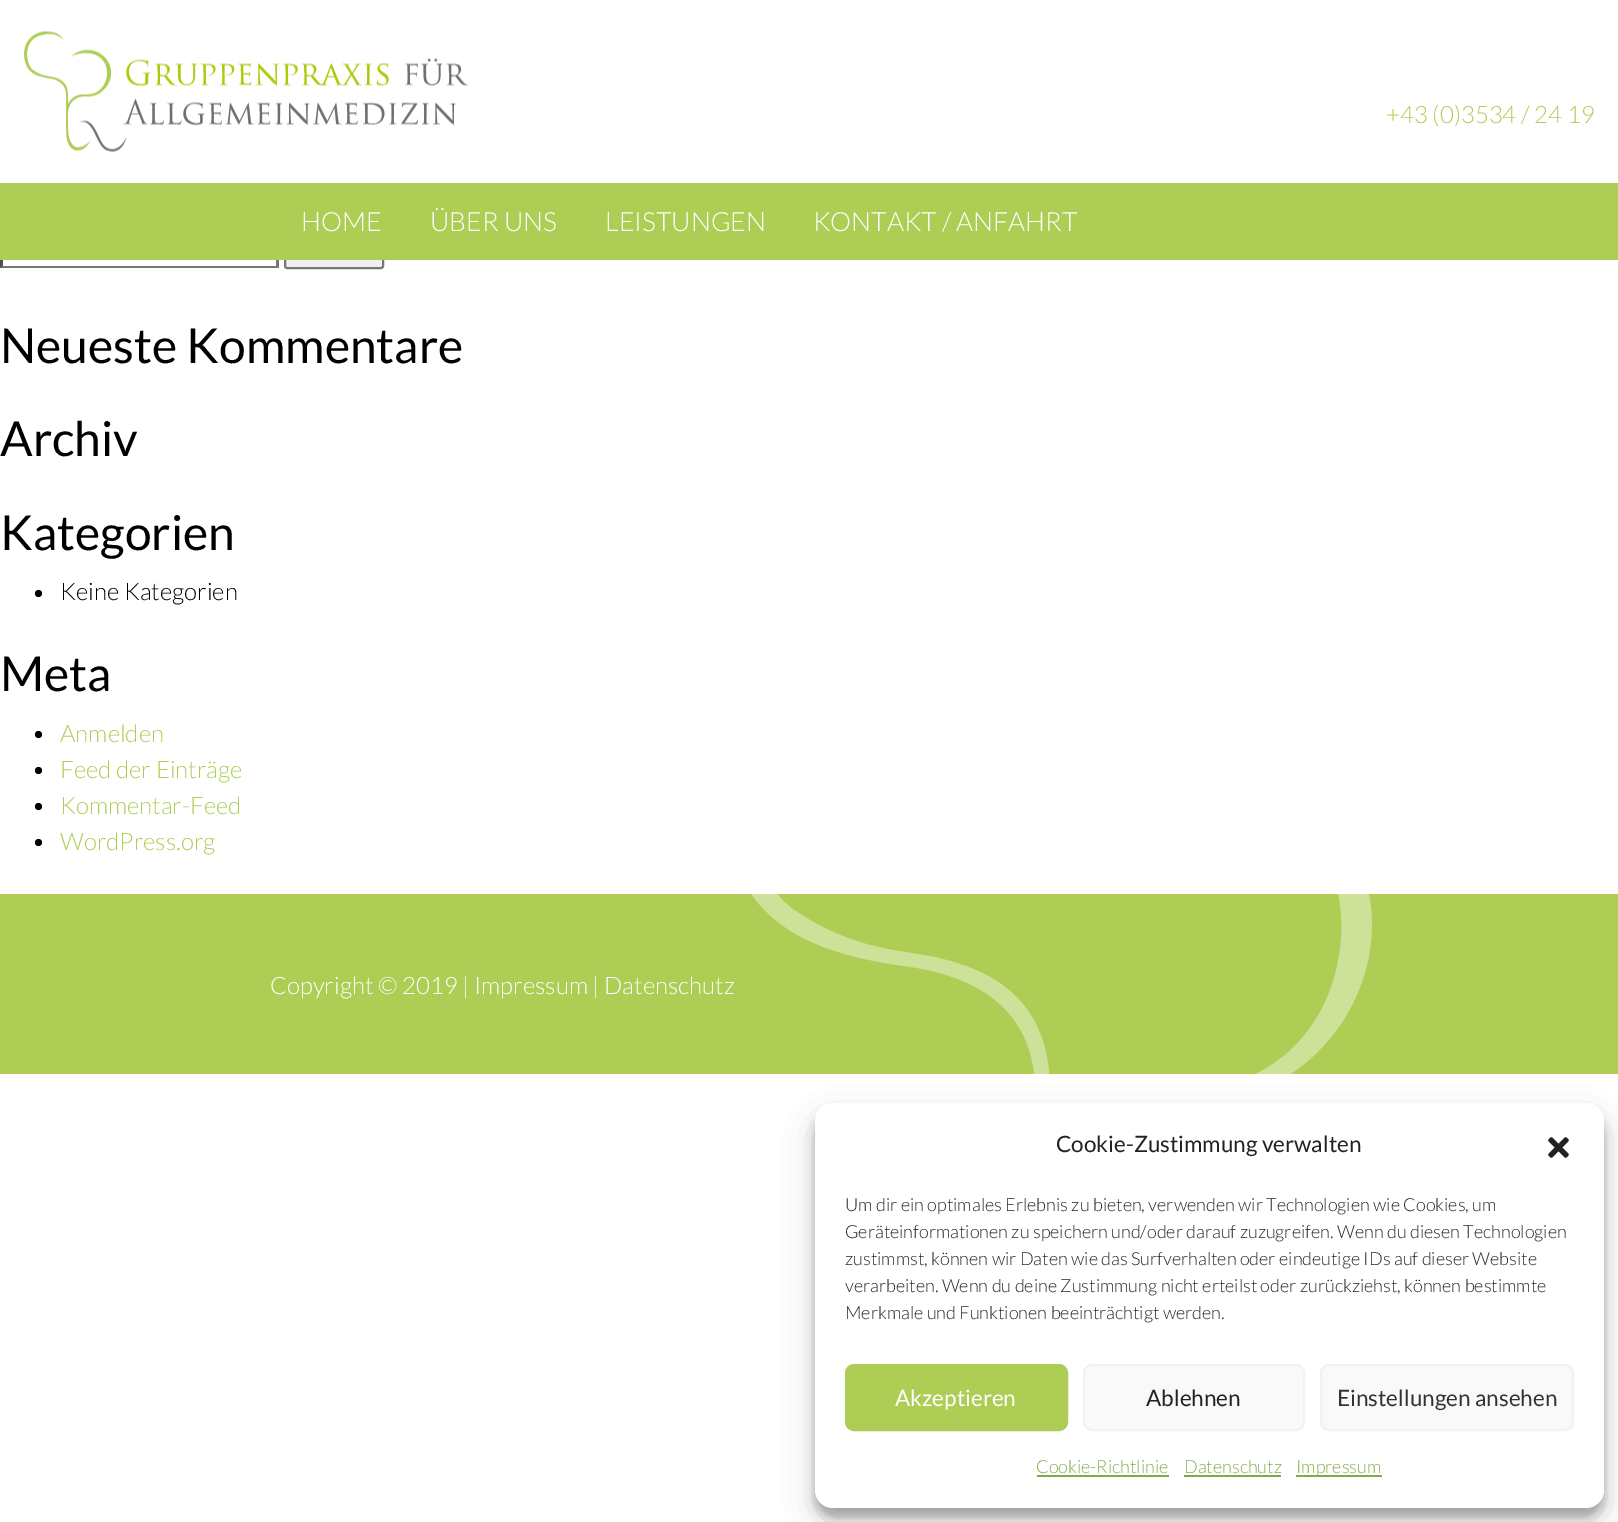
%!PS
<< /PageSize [1618 1522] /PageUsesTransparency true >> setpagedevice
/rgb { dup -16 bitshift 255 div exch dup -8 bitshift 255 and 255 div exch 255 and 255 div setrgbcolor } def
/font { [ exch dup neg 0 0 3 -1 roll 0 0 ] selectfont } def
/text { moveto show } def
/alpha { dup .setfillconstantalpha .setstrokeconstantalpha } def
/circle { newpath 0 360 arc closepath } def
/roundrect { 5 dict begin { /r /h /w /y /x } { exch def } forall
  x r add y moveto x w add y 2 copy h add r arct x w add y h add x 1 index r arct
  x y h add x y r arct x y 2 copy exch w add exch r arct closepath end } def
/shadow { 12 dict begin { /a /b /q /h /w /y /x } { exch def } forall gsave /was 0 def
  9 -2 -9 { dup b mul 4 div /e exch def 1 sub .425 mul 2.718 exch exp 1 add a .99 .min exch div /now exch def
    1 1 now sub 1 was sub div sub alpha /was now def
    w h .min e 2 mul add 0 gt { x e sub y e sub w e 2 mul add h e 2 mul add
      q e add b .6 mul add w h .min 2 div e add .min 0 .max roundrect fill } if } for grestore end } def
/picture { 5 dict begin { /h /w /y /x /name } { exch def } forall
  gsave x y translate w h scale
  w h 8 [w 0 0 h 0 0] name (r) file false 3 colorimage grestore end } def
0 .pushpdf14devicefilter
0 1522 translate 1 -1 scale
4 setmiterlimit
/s1 { /Lato-Light 24 font 16#ADCD55 rgb } def
/s2 { /Lato-Light 26.4 font 16#FFFFFF rgb } def
/s3 { /Lato-Regular 48 font 16#000000 rgb } def
/s4 { /Lato-Light 24 font 16#000000 rgb } def
/s5 { /Lato-Light 24 font 16#FFFFFF rgb } def
/s6 { /Lato-Regular 22.5 font 16#222222 rgb } def
/s7 { /Lato-Light 18 font 16#222222 rgb } def
/s8 { /Lato-Regular 22.5 font 16#FFFFFF rgb } def
/s9 { /Lato-Regular 22.5 font 16#333333 rgb } def
/s10 { /Lato-Light 18 font 16#83A845 rgb } def
16#FFFFFF rgb
0 0 1618 1522 rectfill
(pic1.raw) 24 31 445 121 picture
s1
(+43 \(0\)3534 / 24 19) 1386 123 text
16#767676 rgb
279 224 moveto 279 268 lineto 276 266 lineto 276 226 lineto closepath fill
279 268 moveto 0 268 lineto 3 266 lineto 276 266 lineto closepath fill
16#4F4F4F rgb
0 268 moveto 0 224 lineto 3 226 lineto 3 266 lineto closepath fill
16#EFEFEF rgb
285 225 98 43 2 roundrect gsave fill grestore
16#767676 rgb
2 setlinewidth
stroke
16#ADCD55 rgb
0 183 1618 77 rectfill
s2
(HOME) 301 231 text
(ÜBER UNS) 430 231 text
(LEISTUNGEN) 605 231 text
(KONTAKT / ANFAHRT) 813 231 text
s3
(Neueste Kommentare) 0 363 text
(Archiv) 0 456 text
(Kategorien) 0 550 text
38.5 593.5 3.5 circle fill
s4
(Keine Kategorien) 60 600 text
s3
(Meta) 0 691 text
38.5 734.5 3.5 circle fill
s1
(Anmelden) 60 742 text
16#000000 rgb
38.5 770.5 3.5 circle fill
s1
(Feed der Einträge) 60 778 text
16#000000 rgb
38.5 806.5 3.5 circle fill
s1
(Kommentar-Feed) 60 814 text
16#000000 rgb
38.5 842.5 3.5 circle fill
s1
(WordPress.org) 60 850 text
0 894 1618 180 rectfill
(pic2.raw) 751 894 621 180 picture
s5
(Copyright © 2019 | Impressum | Datenschutz) 270 994 text
16#000000 rgb
815 1112 789 405 18 4.5 0.23 shadow
815 1118 789 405 18 15 0.19 shadow
16#FFFFFF rgb
815 1103 789 405 18 roundrect fill
s6
(Cookie-Zustimmung verwalten) 1056 1152 text
(pic3.raw) 1548 1137 21 21 picture
s7
(Um dir ein optimales Erlebnis zu bieten, verwenden wir Technologien wie Cookies, um) 845 1211 text
(Geräteinformationen zu speichern und/oder darauf zuzugreifen. Wenn du diesen Technologien) 845 1238 text
(zustimmst, können wir Daten wie das Surfverhalten oder eindeutige IDs auf dieser Website) 845 1265 text
(verarbeiten. Wenn du deine Zustimmung nicht erteilst oder zurückziehst, können bestimmte) 845 1292 text
(Merkmale und Funktionen beeinträchtigt werden.) 845 1319 text
16#ADCD55 rgb
846 1365 221 65 8 roundrect gsave fill grestore
stroke
s8
(Akzeptieren) 895 1406 text
16#F9F9F9 rgb
1084 1365 220 65 8 roundrect gsave fill grestore
16#F2F2F2 rgb
stroke
s6
(Ablehnen) 1146 1406 text
16#F9F9F9 rgb
1321 1365 252 65 8 roundrect gsave fill grestore
16#F2F2F2 rgb
stroke
s9
(Einstellungen ansehen) 1337 1406 text
s10
(Cookie-Richtlinie) 1036 1473 text
1037 1475 132 2 rectfill
(Datenschutz) 1184 1473 text
1184 1475 97 2 rectfill
1296 1475 86 2 rectfill
(Impressum) 1296 1473 text
.poppdf14devicefilter showpage
